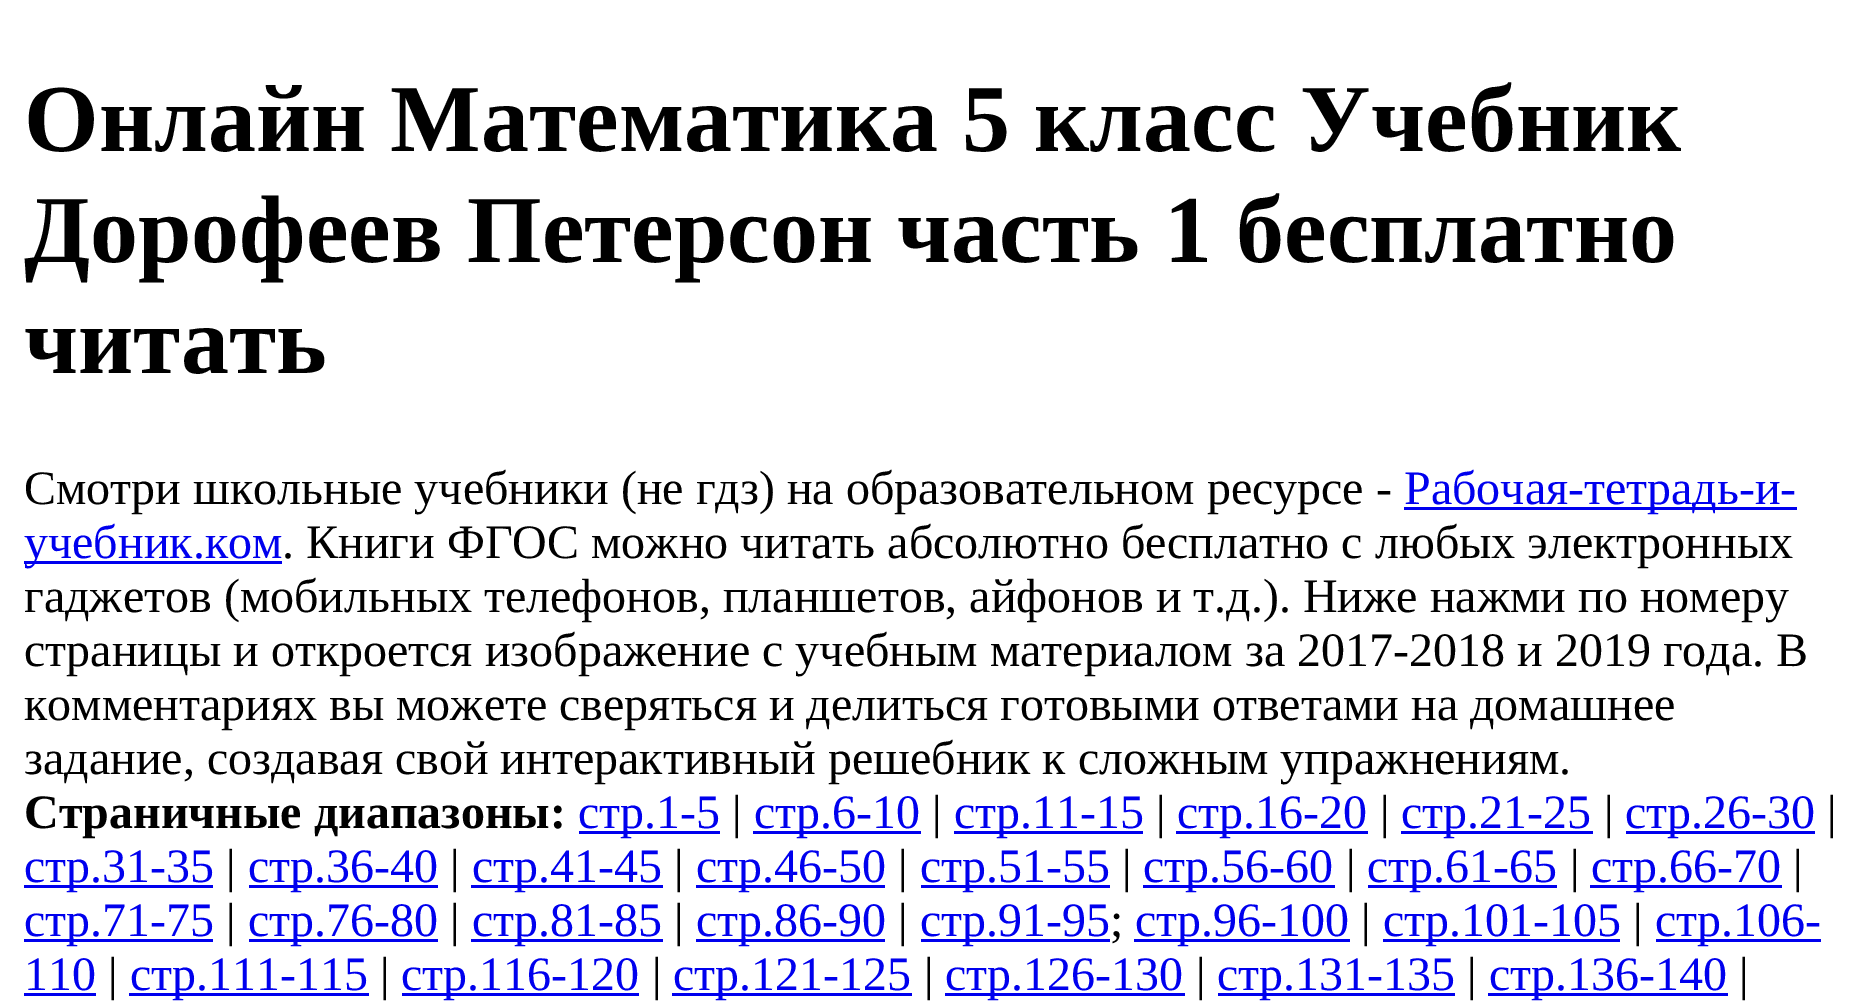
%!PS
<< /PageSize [1868 1004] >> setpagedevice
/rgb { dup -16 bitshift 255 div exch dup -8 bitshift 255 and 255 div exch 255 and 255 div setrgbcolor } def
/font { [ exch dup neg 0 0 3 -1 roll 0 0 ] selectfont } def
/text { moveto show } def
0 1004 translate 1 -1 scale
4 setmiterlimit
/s1 { /LiberationSerif-Bold 96 font 16#000000 rgb } def
/s2 { /LiberationSerif-Regular 48 font 16#000000 rgb } def
/s3 { /LiberationSerif-Regular 48 font 16#0000EE rgb } def
/s4 { /LiberationSerif-Bold 48 font 16#000000 rgb } def
16#FFFFFF rgb
0 0 1868 1004 rectfill
s1
(Онлайн Математика 5 класс Учебник) 24 151 text
(Дорофеев Петерсон часть 1 бесплатно) 24 262 text
(читать) 24 373 text
s2
(Смотри школьные учебники \(не гдз\) на образовательном ресурсе -) 24 504 text
16#0000EE rgb
1404 507 393 3 rectfill
(Рабочая-тетрадь-и-) 1404 504 text
24 561 258 3 rectfill
(учебник.ком) 24 558 text
s2
(. Книги ФГОС можно читать абсолютно бесплатно с любых электронных) 282 558 text
(гаджетов \(мобильных телефонов, планшетов, айфонов и т.д.\). Ниже нажми по номеру) 24 612 text
(страницы и откроется изображение с учебным материалом за 2017-2018 и 2019 года. В) 24 666 text
(комментариях вы можете сверяться и делиться готовыми ответами на домашнее) 24 720 text
(задание, создавая свой интерактивный решебник к сложным упражнениям.) 24 774 text
s4
(Страничные диапазоны:) 24 828 text
16#0000EE rgb
579 831 141 3 rectfill
s3
(стр.1-5) 578 828 text
s2
(|) 732 828 text
16#0000EE rgb
753 831 168 3 rectfill
(стр.6-10) 754 828 text
s2
(|) 932 828 text
16#0000EE rgb
954 831 189 3 rectfill
(стр.11-15) 954 828 text
s2
(|) 1156 828 text
16#0000EE rgb
1176 831 192 3 rectfill
(стр.16-20) 1177 828 text
s2
(|) 1380 828 text
16#0000EE rgb
1401 831 192 3 rectfill
(стр.21-25) 1401 828 text
s2
(|) 1604 828 text
16#0000EE rgb
1626 831 189 3 rectfill
(стр.26-30) 1625 828 text
s2
(|) 1827 828 text
16#0000EE rgb
24 885 189 3 rectfill
(стр.31-35) 24 882 text
s2
(|) 226 882 text
16#0000EE rgb
249 885 189 3 rectfill
(стр.36-40) 248 882 text
s2
(|) 450 882 text
16#0000EE rgb
471 885 192 3 rectfill
(стр.41-45) 472 882 text
s2
(|) 674 882 text
16#0000EE rgb
696 885 189 3 rectfill
(стр.46-50) 696 882 text
s2
(|) 898 882 text
16#0000EE rgb
921 885 189 3 rectfill
(стр.51-55) 920 882 text
s2
(|) 1122 882 text
16#0000EE rgb
1143 885 192 3 rectfill
(стр.56-60) 1143 882 text
s2
(|) 1346 882 text
16#0000EE rgb
1368 885 189 3 rectfill
(стр.61-65) 1367 882 text
s2
(|) 1570 882 text
16#0000EE rgb
1590 885 192 3 rectfill
(стр.66-70) 1591 882 text
s2
(|) 1793 882 text
16#0000EE rgb
24 939 189 3 rectfill
(стр.71-75) 24 936 text
s2
(|) 226 936 text
16#0000EE rgb
249 939 189 3 rectfill
(стр.76-80) 248 936 text
s2
(|) 450 936 text
16#0000EE rgb
471 939 192 3 rectfill
(стр.81-85) 472 936 text
s2
(|) 674 936 text
16#0000EE rgb
696 939 189 3 rectfill
(стр.86-90) 696 936 text
s2
(|) 898 936 text
16#0000EE rgb
921 939 189 3 rectfill
(стр.91-95) 920 936 text
s2
(;) 1110 936 text
16#0000EE rgb
1134 939 216 3 rectfill
(стр.96-100) 1135 936 text
s2
(|) 1361 936 text
16#0000EE rgb
1383 939 237 3 rectfill
(стр.101-105) 1383 936 text
s2
(|) 1633 936 text
16#0000EE rgb
1656 939 165 3 rectfill
(стр.106-) 1655 936 text
(110) 24 990 text
24 993 72 3 rectfill
s2
(|) 108 990 text
16#0000EE rgb
129 993 240 3 rectfill
(стр.111-115) 130 990 text
s2
(|) 380 990 text
16#0000EE rgb
402 993 237 3 rectfill
(стр.116-120) 401 990 text
s2
(|) 652 990 text
16#0000EE rgb
672 993 240 3 rectfill
(стр.121-125) 673 990 text
s2
(|) 924 990 text
16#0000EE rgb
945 993 240 3 rectfill
(стр.126-130) 945 990 text
s2
(|) 1196 990 text
16#0000EE rgb
1218 993 237 3 rectfill
(стр.131-135) 1217 990 text
s2
(|) 1467 990 text
16#0000EE rgb
1488 993 240 3 rectfill
(стр.136-140) 1489 990 text
s2
(|) 1739 990 text
showpage
